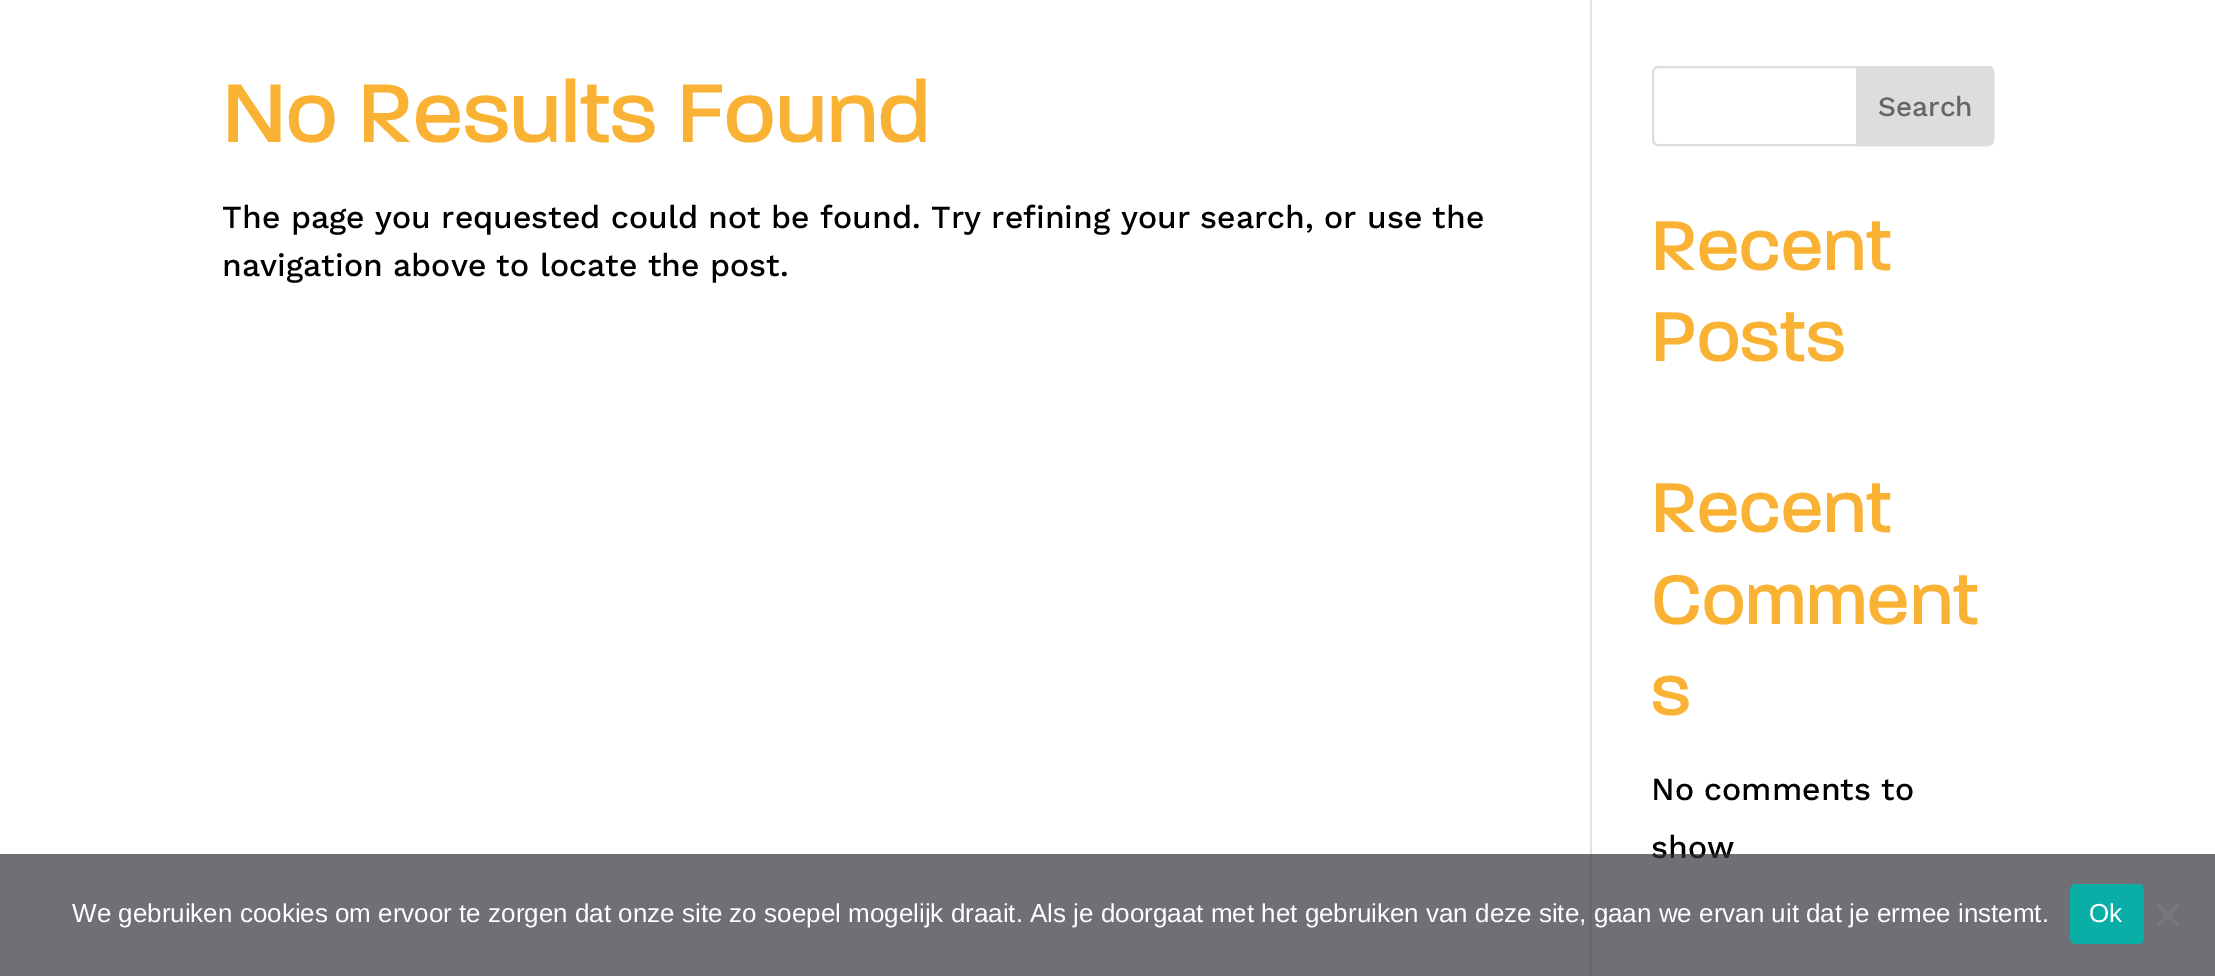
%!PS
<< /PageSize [2215 976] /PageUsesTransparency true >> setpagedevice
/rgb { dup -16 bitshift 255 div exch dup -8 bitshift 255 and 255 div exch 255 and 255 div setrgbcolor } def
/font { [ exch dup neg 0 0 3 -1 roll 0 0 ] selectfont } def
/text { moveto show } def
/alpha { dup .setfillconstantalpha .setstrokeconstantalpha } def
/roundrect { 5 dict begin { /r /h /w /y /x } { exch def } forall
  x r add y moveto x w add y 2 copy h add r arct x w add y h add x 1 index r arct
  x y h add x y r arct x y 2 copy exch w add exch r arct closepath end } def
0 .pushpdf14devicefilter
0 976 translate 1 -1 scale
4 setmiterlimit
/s1 { /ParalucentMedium-Medium 90 font 16#F9B233 rgb } def
/s2 { /WorkSans-Medium 32 font 16#000000 rgb } def
/s3 { /WorkSans-Medium 28 font 16#666666 rgb } def
/s4 { /ParalucentMedium-Medium 76 font 16#F9B233 rgb } def
/s5 { /LiberationSans-Regular 26 font 16#FFFFFF rgb } def
16#FFFFFF rgb
0 0 2215 976 rectfill
16#E2E2E2 rgb
1590 0 2 976 rectfill
s1
(No Results Found) 222 142 text
s2
(The page you requested could not be found. Try refining your search, or use the) 222 228 text
(navigation above to locate the post.) 222 276 text
16#DDDDDD rgb
2 setlinewidth
1653 67 340 78 5 roundrect stroke
1857 67 moveto 1988 67 lineto 1991 67 1993 69 1993 72 curveto 1993 140 lineto 1993 143 1991 145 1988 145 curveto 1857 145 lineto closepath gsave fill grestore
stroke
s3
(Search) 1878 116 text
s4
(Recent) 1651 270 text
(Posts) 1651 361 text
(Recent) 1651 532 text
(Comment) 1651 624 text
(s) 1651 715 text
s2
(No comments to) 1651 800 text
(show) 1651 858 text
0.7 alpha
16#32323A rgb
0 854 2215 122 rectfill
1 alpha
s5
(We gebruiken cookies om ervoor te zorgen dat onze site zo soepel mogelijk draait. Als je doorgaat met het gebruiken van deze site, gaan we ervan uit dat je ermee instemt.) 72 922 text
16#09AFA7 rgb
2070 884 74 60 6 roundrect fill
s5
(Ok) 2089 922 text
16#78787B rgb
2177 903.5 moveto 2180 906.5 lineto 2159 927.5 lineto 2156 924.5 lineto closepath fill
2156 906.5 moveto 2159 903.5 lineto 2180 924.5 lineto 2177 927.5 lineto closepath fill
.poppdf14devicefilter showpage
